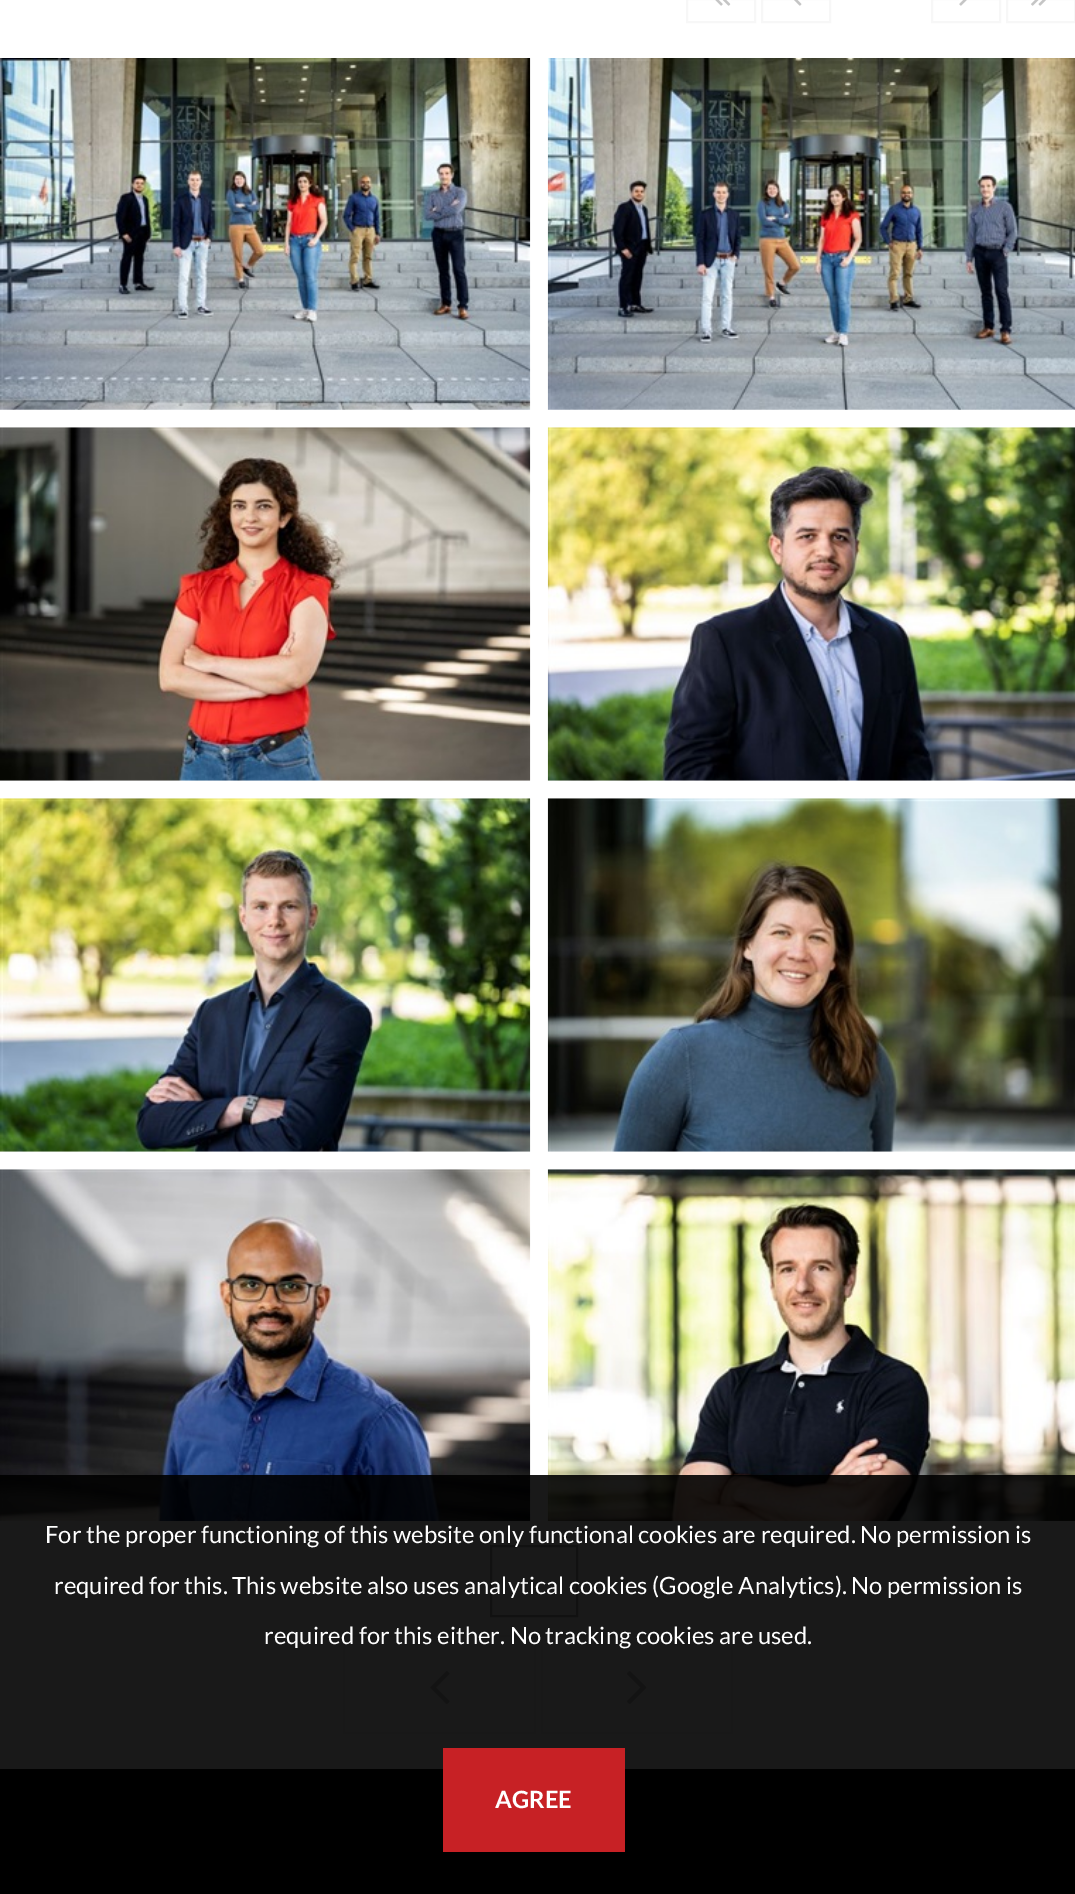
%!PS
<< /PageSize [1075 1894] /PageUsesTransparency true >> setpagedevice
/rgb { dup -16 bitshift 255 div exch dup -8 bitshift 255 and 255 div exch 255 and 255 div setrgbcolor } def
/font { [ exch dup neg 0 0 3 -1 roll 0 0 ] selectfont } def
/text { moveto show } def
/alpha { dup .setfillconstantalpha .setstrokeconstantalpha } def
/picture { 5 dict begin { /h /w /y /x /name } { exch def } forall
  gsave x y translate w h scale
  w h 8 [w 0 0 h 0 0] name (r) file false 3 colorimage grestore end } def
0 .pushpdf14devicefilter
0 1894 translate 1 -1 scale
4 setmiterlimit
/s1 { /Lato-Regular 23.8 font 16#FFFFFF rgb } def
/s2 { /Lato-Bold 23.8 font 16#FFFFFF rgb } def
16#FFFFFF rgb
0 0 1075 1894 rectfill
16#F7F7F7 rgb
2 setlinewidth
687 -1 68 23 rectstroke
(pic1.raw) 715 0 16 6 picture
762 -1 68 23 rectstroke
(pic2.raw) 794 0 8 6 picture
932 -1 68 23 rectstroke
(pic3.raw) 959 0 8 6 picture
1007 -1 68 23 rectstroke
(pic4.raw) 1031 0 15 6 picture
(pic5.raw) 0 58 531 352 picture
(pic6.raw) 547 58 528 352 picture
(pic7.raw) 0 427 531 354 picture
(pic8.raw) 547 427 528 354 picture
(pic9.raw) 0 798 531 354 picture
(pic10.raw) 547 798 528 354 picture
(pic11.raw) 0 1169 531 352 picture
(pic12.raw) 547 1169 528 352 picture
16#AFAFAF rgb
491 1546 86 70 rectstroke
16#F7F7F7 rgb
344 1636 191 97 rectstroke
(pic13.raw) 430 1671 20 33 picture
542 1636 190 97 rectstroke
(pic14.raw) 627 1671 20 33 picture
0.9 alpha
16#000000 rgb
0 1475 1075 294 rectfill
1 alpha
s1
(For the proper functioning of this website only functional cookies are required. No permission is) 45 1543 text
(required for this. This website also uses analytical cookies \(Google Analytics\). No permission is) 54 1594 text
(required for this either. No tracking cookies are used.) 264 1644 text
16#000000 rgb
0 1769 1075 125 rectfill
16#C72125 rgb
443 1748 182 104 rectfill
s2
(AGREE) 495 1808 text
.poppdf14devicefilter showpage
